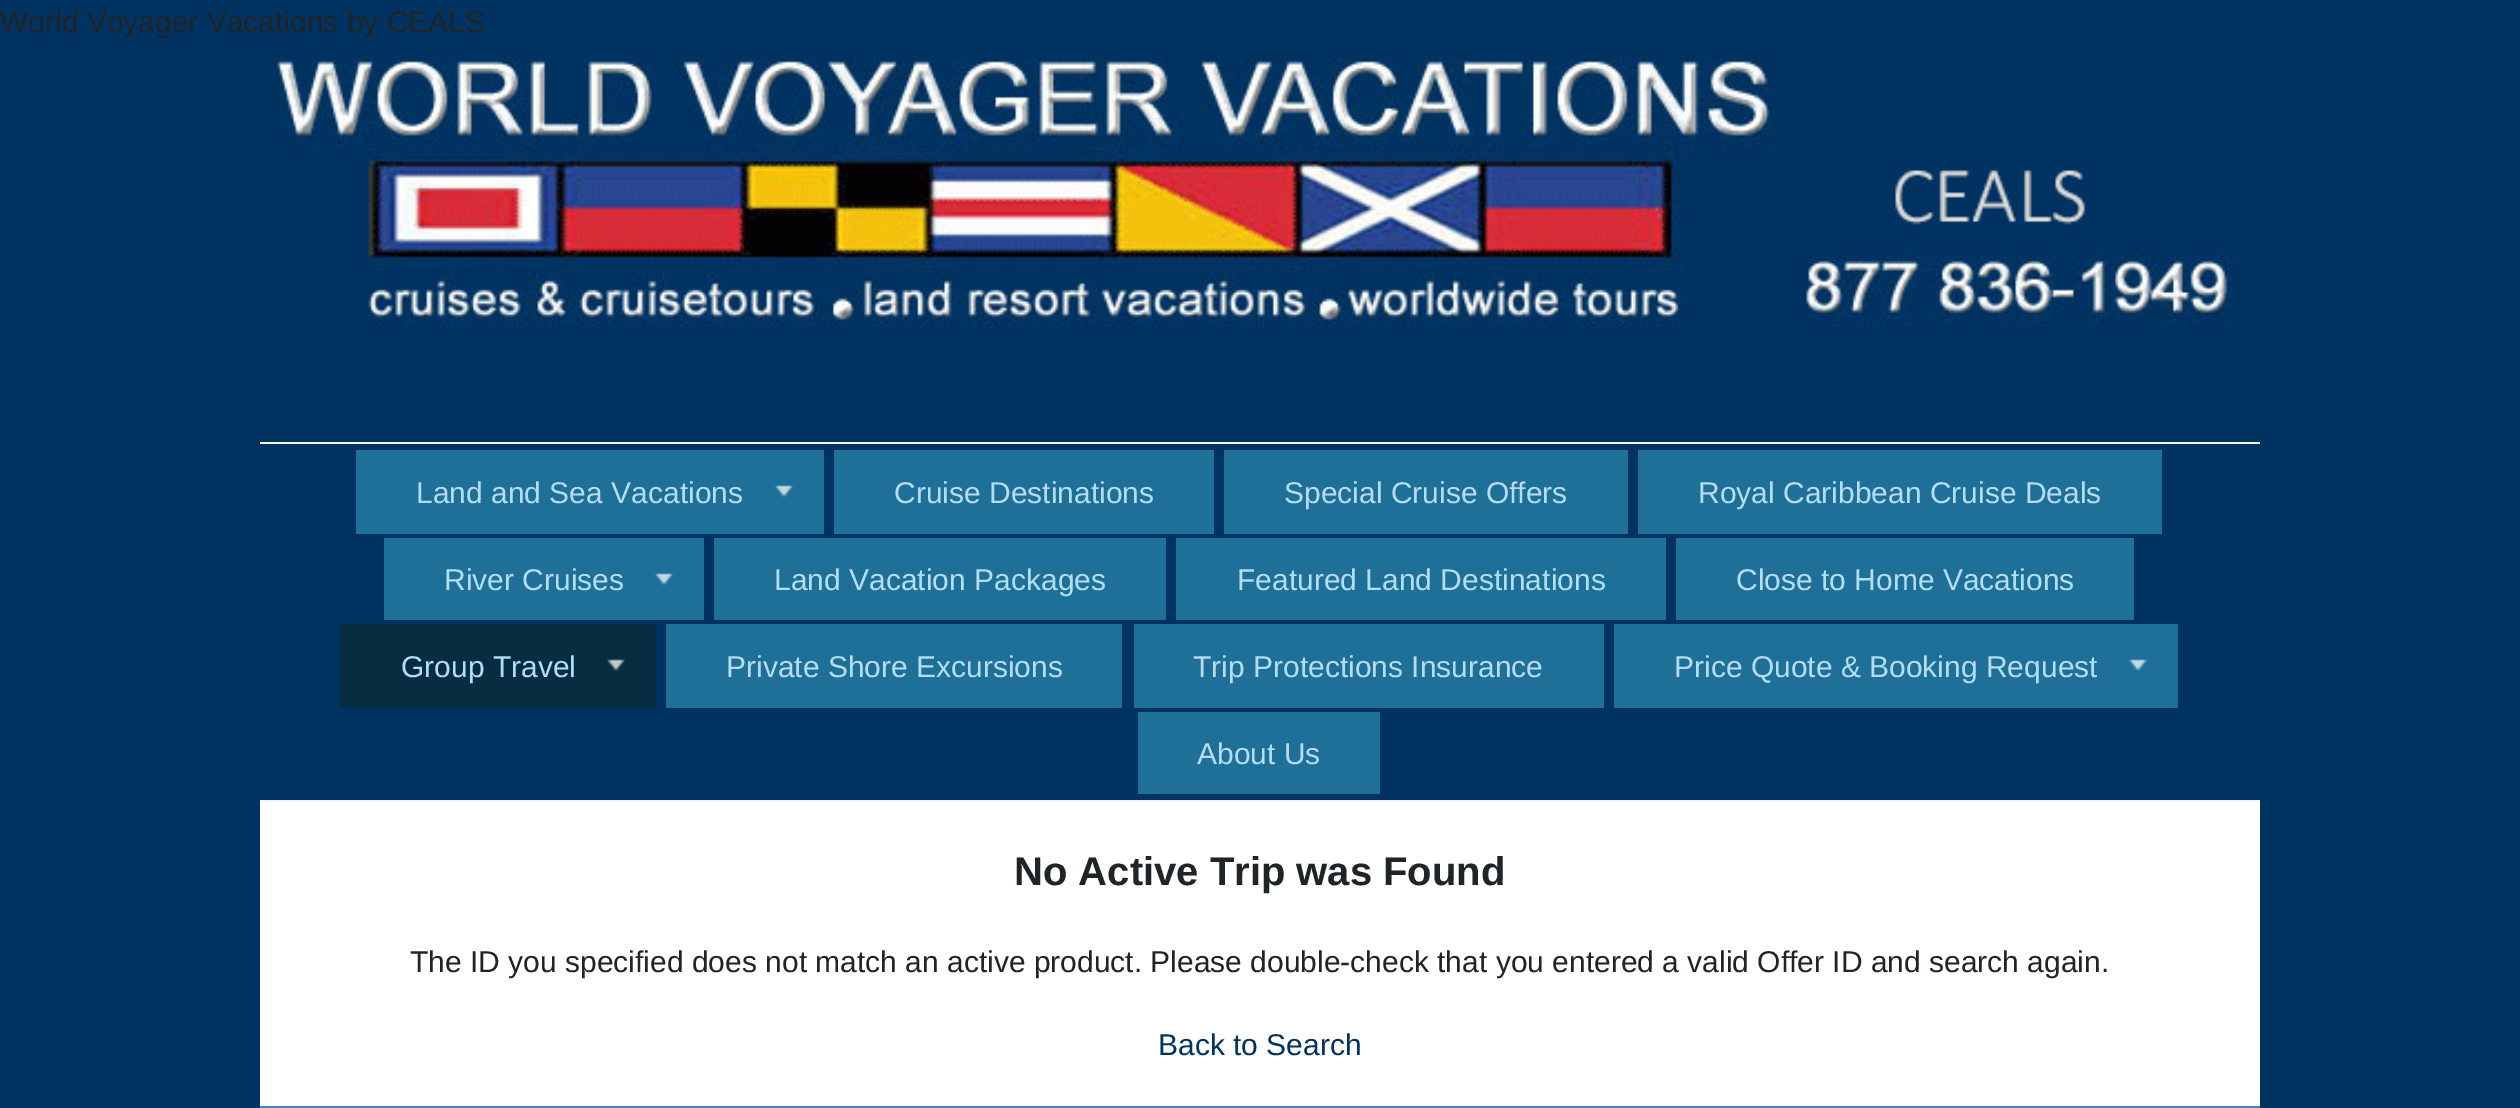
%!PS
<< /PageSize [2520 1108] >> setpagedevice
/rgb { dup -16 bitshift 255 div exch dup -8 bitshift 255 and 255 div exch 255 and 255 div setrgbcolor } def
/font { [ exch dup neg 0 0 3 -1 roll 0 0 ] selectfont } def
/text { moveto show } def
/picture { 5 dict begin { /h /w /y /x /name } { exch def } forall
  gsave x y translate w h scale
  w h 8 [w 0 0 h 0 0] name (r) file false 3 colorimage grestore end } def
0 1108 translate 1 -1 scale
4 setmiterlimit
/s1 { /LiberationSans-Regular 30 font 16#1F2426 rgb } def
/s2 { /LiberationSans-Regular 30 font 16#B4DDF1 rgb } def
/s3 { /LiberationSans-Bold 40 font 16#1F2426 rgb } def
/s4 { /LiberationSans-Regular 30 font 16#003362 rgb } def
16#003362 rgb
0 0 2520 1108 rectfill
s1
(World Voyager Vacations by CEALS) 0 32 text
(pic1.raw) 277 59 1957 267 picture
16#F6F5F0 rgb
260 442 2000 2 rectfill
260 800 2000 2 rectfill
16#1F7099 rgb
356 450 468 84 rectfill
(pic2.raw) 775 485 18 12 picture
s2
(Land and Sea Vacations) 416 503 text
16#1F7099 rgb
834 450 380 84 rectfill
s2
(Cruise Destinations) 894 503 text
16#1F7099 rgb
1224 450 404 84 rectfill
s2
(Special Cruise Offers) 1284 503 text
16#1F7099 rgb
1638 450 524 84 rectfill
s2
(Royal Caribbean Cruise Deals) 1698 503 text
16#1F7099 rgb
384 538 320 82 rectfill
(pic2.raw) 655 573 18 12 picture
s2
(River Cruises) 444 590 text
16#1F7099 rgb
714 538 452 82 rectfill
s2
(Land Vacation Packages) 774 590 text
16#1F7099 rgb
1176 538 490 82 rectfill
s2
(Featured Land Destinations) 1237 590 text
16#1F7099 rgb
1676 538 458 82 rectfill
s2
(Close to Home Vacations) 1736 590 text
16#062D40 rgb
340 624 316 84 rectfill
(pic3.raw) 607 659 18 12 picture
s2
(Group Travel) 401 677 text
16#1F7099 rgb
666 624 456 84 rectfill
s2
(Private Shore Excursions) 726 677 text
16#1F7099 rgb
1134 624 470 84 rectfill
s2
(Trip Protections Insurance) 1193 677 text
16#1F7099 rgb
1614 624 564 84 rectfill
(pic2.raw) 2129 659 18 12 picture
s2
(Price Quote & Booking Request) 1674 677 text
16#1F7099 rgb
1138 712 242 82 rectfill
s2
(About Us) 1197 764 text
16#FFFFFF rgb
260 802 2000 304 rectfill
s3
(No Active Trip was Found) 1014 885 text
s1
(The ID you specified does not match an active product. Please double-check that you entered a valid Offer ID and search again.) 410 972 text
s4
(Back to Search) 1158 1055 text
16#3D85C6 rgb
260 1106 2000 2 rectfill
showpage
